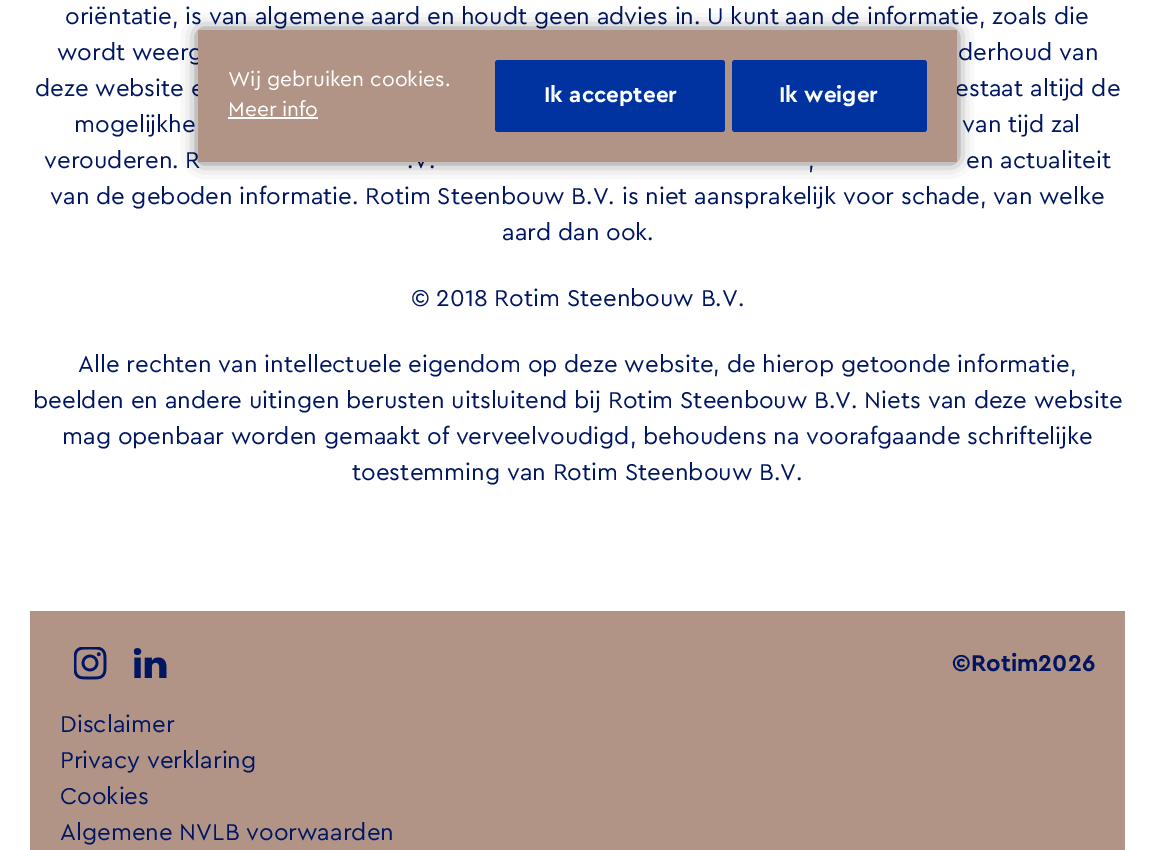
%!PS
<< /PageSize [1155 850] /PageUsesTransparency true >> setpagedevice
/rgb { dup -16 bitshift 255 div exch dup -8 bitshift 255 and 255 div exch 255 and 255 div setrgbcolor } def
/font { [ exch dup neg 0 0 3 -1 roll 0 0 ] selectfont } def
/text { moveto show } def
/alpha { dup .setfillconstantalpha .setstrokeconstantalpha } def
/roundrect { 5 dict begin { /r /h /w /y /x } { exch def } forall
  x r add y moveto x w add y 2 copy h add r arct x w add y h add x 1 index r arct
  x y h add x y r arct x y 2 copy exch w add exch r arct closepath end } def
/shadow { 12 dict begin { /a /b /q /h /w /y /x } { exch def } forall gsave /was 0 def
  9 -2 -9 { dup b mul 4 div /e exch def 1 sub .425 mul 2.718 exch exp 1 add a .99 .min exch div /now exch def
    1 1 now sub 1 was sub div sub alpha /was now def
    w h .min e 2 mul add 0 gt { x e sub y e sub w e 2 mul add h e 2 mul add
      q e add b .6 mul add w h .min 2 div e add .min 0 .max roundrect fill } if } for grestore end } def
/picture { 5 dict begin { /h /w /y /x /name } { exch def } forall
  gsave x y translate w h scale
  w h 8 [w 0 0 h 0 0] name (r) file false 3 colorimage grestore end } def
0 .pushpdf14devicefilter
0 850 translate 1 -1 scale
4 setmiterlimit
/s1 { /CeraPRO-Regular 24 font 16#001663 rgb } def
/s2 { /CeraPRO-Regular 21 font 16#FFFFFF rgb } def
/s3 { /CeraPRO-Bold 22.5 font 16#FFFFFF rgb } def
/s4 { /CeraPRO-Bold 24 font 16#001663 rgb } def
16#FFFFFF rgb
0 0 1155 850 rectfill
s1
(oriëntatie, is van algemene aard en houdt geen advies in. U kunt aan de informatie, zoals die) 65 24 text
(wordt weerg) 57 60 text
(derhoud van) 958 60 text
(deze website e) 35 96 text
(estaat altijd de) 955 96 text
(mogelijkhe) 74 132 text
(van tijd zal) 962 132 text
(verouderen. R) 44 168 text
(.V.) 407 168 text
(,) 808 168 text
(en actualiteit) 966 168 text
(van de geboden informatie. Rotim Steenbouw B.V. is niet aansprakelijk voor schade, van welke) 50 204 text
(aard dan ook.) 502 240 text
(© 2018 Rotim Steenbouw B.V.) 411 306 text
(Alle rechten van intellectuele eigendom op deze website, de hierop getoonde informatie,) 78 372 text
(beelden en andere uitingen berusten uitsluitend bij Rotim Steenbouw B.V. Niets van deze website) 33 408 text
(mag openbaar worden gemaakt of verveelvoudigd, behoudens na voorafgaande schriftelijke) 62 444 text
(toestemming van Rotim Steenbouw B.V.) 352 480 text
16#000000 rgb
201 33 753 126 0 9 0.8 shadow
16#B29486 rgb
198 30 759 132 rectfill
s2
(Wij gebruiken cookies.) 228 86 text
(Meer info) 228 116 text
228 117 90 2 rectfill
16#0033A0 rgb
495 60 230 72 3 roundrect fill
s3
(Ik accepteer) 544 102 text
16#0033A0 rgb
732 60 195 72 3 roundrect fill
s3
(Ik weiger) 779 102 text
16#B29486 rgb
30 611 1095 239 rectfill
(pic1.raw) 74 647 33 33 picture
(pic2.raw) 134 648 33 30 picture
s4
(©Rotim2026) 952 671 text
s1
(Disclaimer) 60 732 text
(Privacy verklaring) 60 768 text
(Cookies) 60 804 text
(Algemene NVLB voorwaarden) 60 840 text
.poppdf14devicefilter showpage
